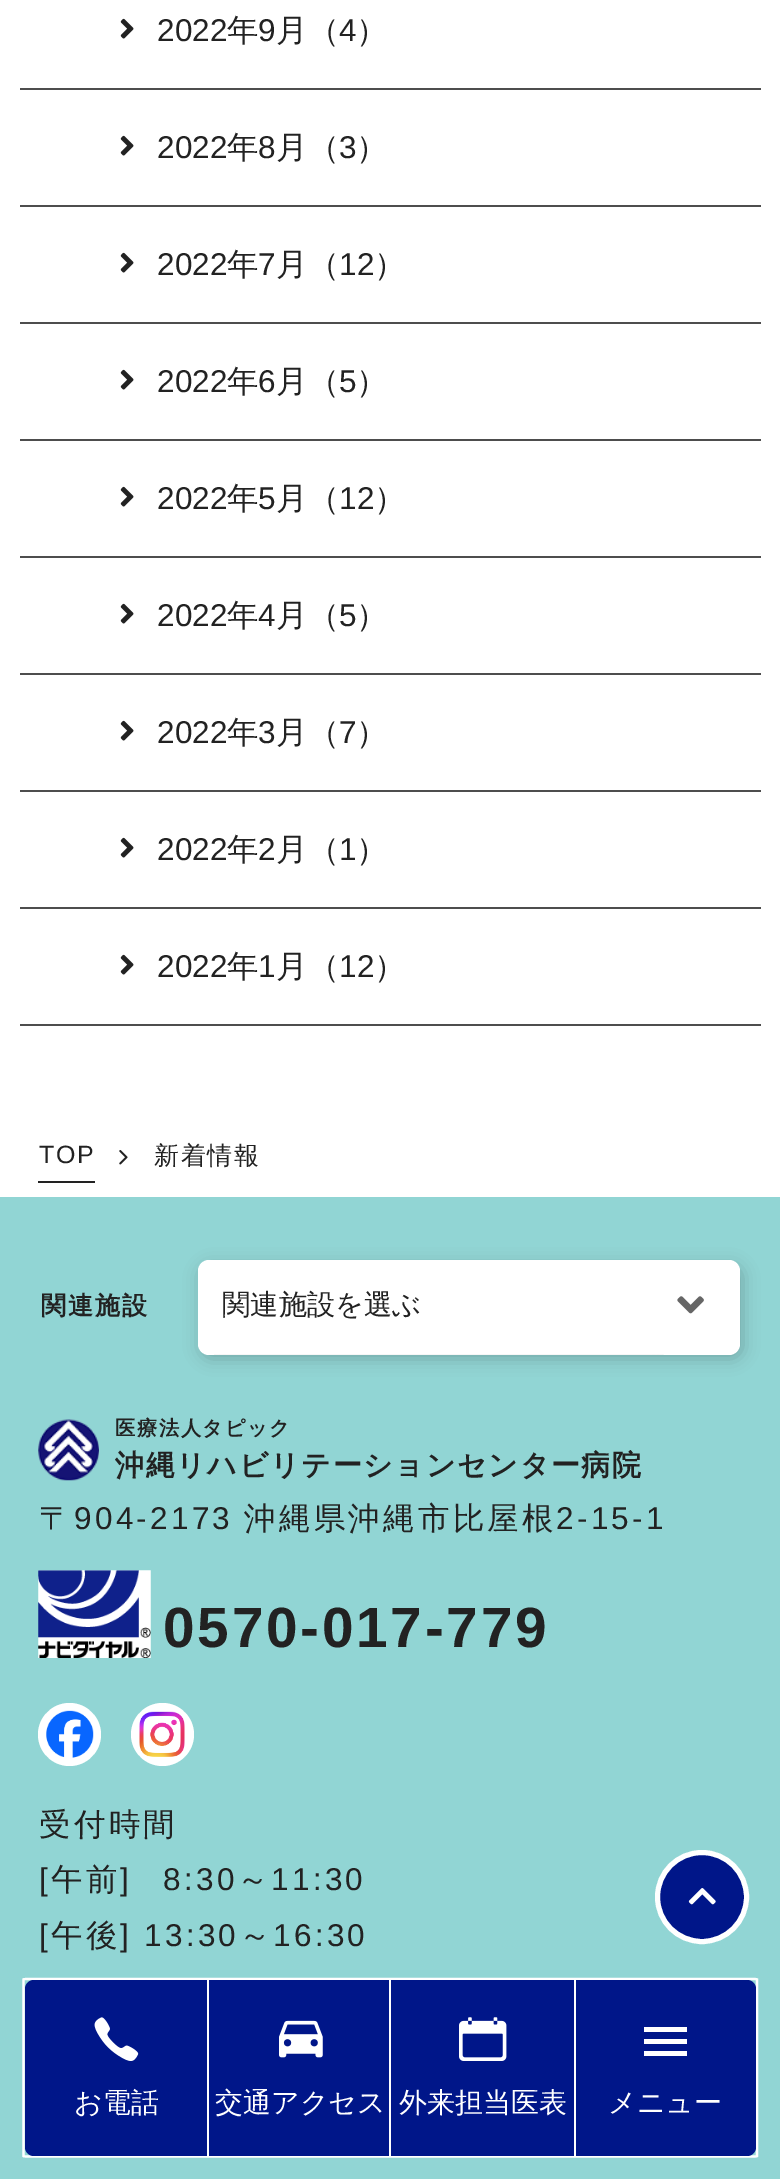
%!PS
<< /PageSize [780 2179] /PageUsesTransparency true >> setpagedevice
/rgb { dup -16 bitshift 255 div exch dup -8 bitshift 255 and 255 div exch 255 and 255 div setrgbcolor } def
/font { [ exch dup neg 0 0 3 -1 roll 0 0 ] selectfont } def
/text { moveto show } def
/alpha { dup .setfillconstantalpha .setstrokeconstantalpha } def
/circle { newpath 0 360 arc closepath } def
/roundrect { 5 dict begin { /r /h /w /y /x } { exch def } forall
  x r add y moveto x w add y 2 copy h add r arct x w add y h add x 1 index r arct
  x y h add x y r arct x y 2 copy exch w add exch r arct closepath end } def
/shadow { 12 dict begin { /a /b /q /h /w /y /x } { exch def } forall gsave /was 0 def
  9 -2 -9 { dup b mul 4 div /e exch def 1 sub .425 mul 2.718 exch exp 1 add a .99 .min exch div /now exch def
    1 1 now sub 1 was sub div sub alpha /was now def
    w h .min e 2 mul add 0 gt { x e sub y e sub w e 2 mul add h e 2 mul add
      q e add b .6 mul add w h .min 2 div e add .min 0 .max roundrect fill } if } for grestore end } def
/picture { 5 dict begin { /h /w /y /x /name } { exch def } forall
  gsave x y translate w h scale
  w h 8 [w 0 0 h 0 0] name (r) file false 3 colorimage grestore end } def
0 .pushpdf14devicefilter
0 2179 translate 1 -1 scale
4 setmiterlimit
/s1 { /LiberationSans-Regular 31.5 font 16#222222 rgb } def
/s2 { /WenQuanYiZenHei-Medium 31.5 font 16#222222 rgb } def
/s3 { /WenQuanYiZenHei-Medium 28.25 font 16#222222 rgb } def
/s4 { /WenQuanYiZenHei-Medium 28 font 16#FFFFFF rgb } def
16#FFFFFF rgb
0 0 780 2179 rectfill
16#4D4D4D rgb
20 88 741 2 rectfill
(pic1.raw) 120 18 14 21 picture
s1
(2022) 157 41 text
s2
(年) 227 41 text
s1
(9) 258 41 text
s2
(月（) 276 41 text
s1
(4) 339 41 text
s2
(）) 356 41 text
16#4D4D4D rgb
20 205 741 2 rectfill
(pic1.raw) 120 135 14 21 picture
s1
(2022) 157 158 text
s2
(年) 227 158 text
s1
(8) 258 158 text
s2
(月（) 276 158 text
s1
(3) 339 158 text
s2
(）) 356 158 text
16#4D4D4D rgb
20 322 741 2 rectfill
(pic1.raw) 120 252 14 21 picture
s1
(2022) 157 275 text
s2
(年) 227 275 text
s1
(7) 258 275 text
s2
(月（) 276 275 text
s1
(12) 339 275 text
s2
(）) 374 275 text
16#4D4D4D rgb
20 439 741 2 rectfill
(pic1.raw) 120 369 14 21 picture
s1
(2022) 157 392 text
s2
(年) 227 392 text
s1
(6) 258 392 text
s2
(月（) 276 392 text
s1
(5) 339 392 text
s2
(）) 356 392 text
16#4D4D4D rgb
20 556 741 2 rectfill
(pic1.raw) 120 486 14 21 picture
s1
(2022) 157 509 text
s2
(年) 227 509 text
s1
(5) 258 509 text
s2
(月（) 276 509 text
s1
(12) 339 509 text
s2
(）) 374 509 text
16#4D4D4D rgb
20 673 741 2 rectfill
(pic1.raw) 120 603 14 21 picture
s1
(2022) 157 626 text
s2
(年) 227 626 text
s1
(4) 258 626 text
s2
(月（) 276 626 text
s1
(5) 339 626 text
s2
(）) 356 626 text
16#4D4D4D rgb
20 790 741 2 rectfill
(pic1.raw) 120 720 14 21 picture
s1
(2022) 157 743 text
s2
(年) 227 743 text
s1
(3) 258 743 text
s2
(月（) 276 743 text
s1
(7) 339 743 text
s2
(）) 356 743 text
16#4D4D4D rgb
20 907 741 2 rectfill
(pic1.raw) 120 837 14 21 picture
s1
(2022) 157 860 text
s2
(年) 227 860 text
s1
(2) 258 860 text
s2
(月（) 276 860 text
s1
(1) 339 860 text
s2
(）) 356 860 text
16#4D4D4D rgb
20 1024 741 2 rectfill
(pic1.raw) 120 954 14 21 picture
s1
(2022) 157 977 text
s2
(年) 227 977 text
s1
(1) 258 977 text
s2
(月（) 276 977 text
s1
(12) 339 977 text
s2
(）) 374 977 text
38 1181 57 2 rectfill
/LiberationSans-Regular 25 font
39 1163 moveto 1.5 0 (TOP) ashow
(pic2.raw) 119 1150 9 15 picture
/WenQuanYiZenHei-Medium 25 font
154 1164 moveto 1.5 0 (新着情報) ashow
16#91D5D4 rgb
0 1197 780 982 rectfill
/WenQuanYiZenHei-Bold 25 font
16#222222 rgb
41 1314 moveto 2 0 (関連施設) ashow
16#000000 rgb
200 1265 543 94 11 8 0.2 shadow
16#FFFFFF rgb
198 1260 542 95 11 roundrect fill
s3
(関連施設を選ぶ) 222 1314 text
(pic3.raw) 677 1296 27 18 picture
(pic4.raw) 214 1354 450 1 picture
(pic5.raw) 38 1419 61 62 picture
/WenQuanYiZenHei-Bold 20.25 font
115 1435 moveto 1.6 0 (医療法人タピック) ashow
/WenQuanYiZenHei-Bold 29 font
115 1475 moveto 1.6 0 (沖縄リハビリテーションセンター病院) ashow
/WenQuanYiZenHei-Medium 31.5 font
39 1529 moveto 3.25 0 (〒) ashow
/LiberationSans-Regular 31.5 font
74 1529 moveto 3.25 0 (904-2173) ashow
/WenQuanYiZenHei-Medium 31.5 font
244 1529 moveto 3.25 0 (沖縄県沖縄市比屋根) ashow
/LiberationSans-Regular 31.5 font
556 1529 moveto 3.25 0 (2-15-1) ashow
(pic6.raw) 38 1570 113 88 picture
/LiberationSans-Bold 56.75 font
163 1647 moveto 2.75 0 (0570-017-779) ashow
16#FFFFFF rgb
69.5 1734.5 31.5 circle fill
(pic7.raw) 46 1710 48 48 picture
162.5 1734.5 31.5 circle fill
(pic8.raw) 139 1711 46 46 picture
/WenQuanYiZenHei-Medium 31.5 font
16#222222 rgb
39 1835 moveto 3.25 0 (受付時間) ashow
/LiberationSans-Regular 31.5 font
39 1890 moveto 3.25 0 ([) ashow
/WenQuanYiZenHei-Medium 31.5 font
51 1890 moveto 3.25 0 (午前) ashow
/LiberationSans-Regular 31.5 font
120 1890 moveto 3.25 0 (]) ashow
163 1890 moveto 3.25 0 (8:30) ashow
/WenQuanYiZenHei-Medium 31.5 font
237 1890 moveto 3.25 0 (～) ashow
/LiberationSans-Regular 31.5 font
271 1890 moveto 3.25 0 (11:30) ashow
39 1946 moveto 3.25 0 ([) ashow
/WenQuanYiZenHei-Medium 31.5 font
51 1946 moveto 3.25 0 (午後) ashow
/LiberationSans-Regular 31.5 font
120 1946 moveto 3.25 0 (] 13:30) ashow
/WenQuanYiZenHei-Medium 31.5 font
239 1946 moveto 3.25 0 (～) ashow
/LiberationSans-Regular 31.5 font
273 1946 moveto 3.25 0 (16:30) ashow
16#001689 rgb
702 1897 44.5 circle gsave fill grestore
16#FFFFFF rgb
5 setlinewidth
stroke
(pic9.raw) 688 1888 28 17 picture
2.2 setlinewidth
30 1979 moveto 751 1979 lineto 754.5 1979 757 1979 757 1979.5 curveto 757 2156 lineto 757 2156.5 754.5 2156.5 751 2156.5 curveto 30 2156.5 lineto 26.5 2156.5 23.5 2156.5 23.5 2156 curveto 23.5 1979.5 lineto 23.5 1979 26.5 1979 30 1979 curveto closepath stroke
16#001689 rgb
34 1980 moveto 207 1980 lineto 207 2156 lineto 34 2156 lineto 29 2156 25 2152 25 2147 curveto 25 1989 lineto 25 1984 29 1980 34 1980 curveto closepath fill
(pic10.raw) 94 2017 45 44 picture
s4
(お電話) 74 2112 text
16#001689 rgb
209 1980 180 176 rectfill
16#FFFFFF rgb
207 1980 2 176 rectfill
(pic11.raw) 279 2020 44 38 picture
(交通アクセス) 215 2112 text
16#001689 rgb
391 1980 183 176 rectfill
16#FFFFFF rgb
389 1980 2 176 rectfill
(pic12.raw) 459 2017 48 44 picture
(外来担当医表) 399 2112 text
16#001689 rgb
574 1980 moveto 747 1980 lineto 752 1980 756 1984 756 1989 curveto 756 2147 lineto 756 2152 752 2156 747 2156 curveto 574 2156 lineto closepath fill
16#FFFFFF rgb
574 1980 2 176 rectfill
644 2056 moveto 644 2051 lineto 687 2051 lineto 687 2056 lineto closepath 644 2044 moveto 644 2039 lineto 687 2039 lineto 687 2044 lineto closepath 644 2027 moveto 687 2027 lineto 687 2032 lineto 644 2032 lineto closepath fill
(メニュー) 608 2112 text
.poppdf14devicefilter showpage
